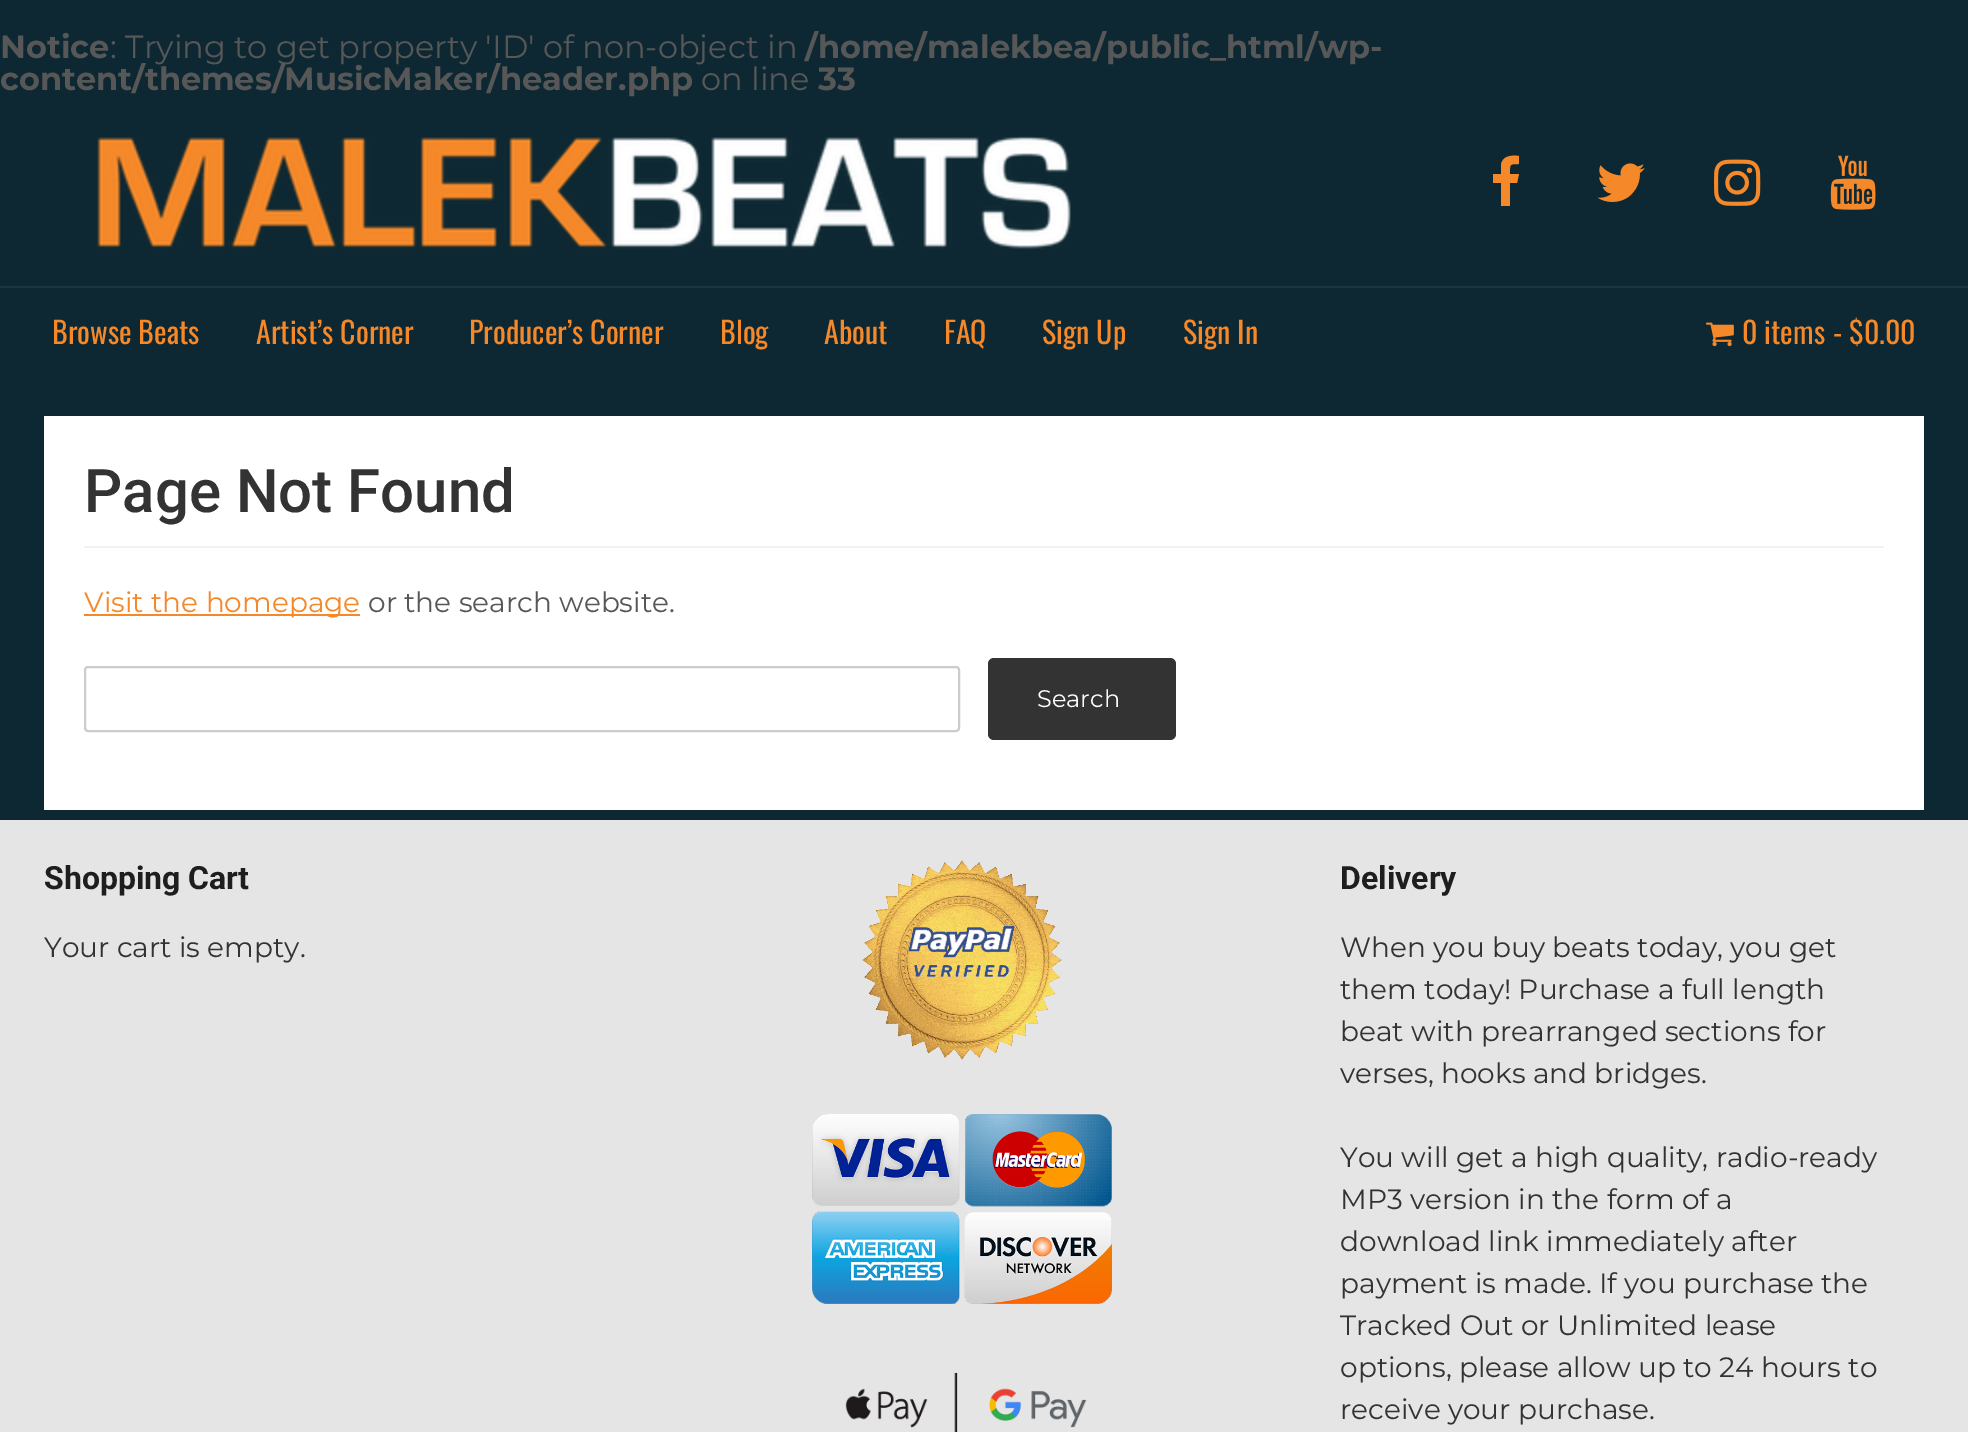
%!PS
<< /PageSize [1968 1432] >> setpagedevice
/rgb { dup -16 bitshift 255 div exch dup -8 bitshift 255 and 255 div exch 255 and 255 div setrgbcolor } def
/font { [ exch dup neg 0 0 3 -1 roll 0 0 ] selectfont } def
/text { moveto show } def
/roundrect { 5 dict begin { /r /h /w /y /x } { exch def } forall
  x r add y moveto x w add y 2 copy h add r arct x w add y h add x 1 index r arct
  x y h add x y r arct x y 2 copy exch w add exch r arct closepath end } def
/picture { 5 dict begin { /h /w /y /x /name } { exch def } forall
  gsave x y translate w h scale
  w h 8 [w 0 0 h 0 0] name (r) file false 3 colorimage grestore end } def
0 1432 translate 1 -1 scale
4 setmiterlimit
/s1 { /Montserrat-Bold 32 font 16#575757 rgb } def
/s2 { /Montserrat-Regular 32 font 16#575757 rgb } def
/s3 { /Oswald-Regular 30 font 16#F58829 rgb } def
/s4 { /Roboto-Medium 60 font 16#333333 rgb } def
/s5 { /Montserrat-Regular 28 font 16#F58829 rgb } def
/s6 { /Montserrat-Regular 28 font 16#575757 rgb } def
/s7 { /Montserrat-Regular 24 font 16#FFFFFF rgb } def
/s8 { /Roboto-Bold 32 font 16#1E1E1E rgb } def
/s9 { /Montserrat-Regular 28 font 16#333333 rgb } def
16#0D2832 rgb
0 0 1968 1432 rectfill
s1
(Notice) 0 58 text
s2
(: Trying to get property 'ID' of non-object in) 110 58 text
s1
(/home/malekbea/public_html/wp-) 805 58 text
(content/themes/MusicMaker/header.php) 0 90 text
s2
(on line) 701 90 text
s1
(33) 818 90 text
(pic1.raw) 97 136 974 113 picture
16#F58829 rgb
1519 156 moveto 1519 164 lineto 1509 164 1510 164 1510 174 curveto 1519 174 lineto 1517 183 lineto 1510 183 lineto 1510 206 lineto 1501 206 lineto 1501 183 lineto 1493 183 lineto 1493 174 lineto 1501 174 lineto 1501 165 lineto 1502 156 1511 155 1519 156 curveto closepath fill
(pic2.raw) 1597 163 48 39 picture
(pic3.raw) 1714 159 47 47 picture
(pic4.raw) 1830 155 46 55 picture
16#1C353E rgb
0 286 1968 2 rectfill
s3
(Browse Beats) 52 344 text
(Artist’s Corner) 256 344 text
(Producer’s Corner) 469 344 text
(Blog) 720 344 text
(About) 824 344 text
(FAQ) 944 344 text
(Sign Up) 1042 344 text
(Sign In) 1183 344 text
(pic5.raw) 1706 322 28 25 picture
(0 items) 1742 344 text
(-) 1833 344 text
($0.00) 1849 344 text
16#FFFFFF rgb
44 416 1880 394 rectfill
16#F2F2F2 rgb
84 546 1800 2 rectfill
s4
(Page Not Found) 84 512 text
16#F58829 rgb
84 614 276 2 rectfill
s5
(Visit the homepage) 84 612 text
s6
(or the search website.) 368 612 text
16#CCCCCC rgb
2 setlinewidth
85 667 874 64 3 roundrect stroke
16#333333 rgb
988 658 188 82 6 roundrect fill
s7
(Search) 1037 707 text
16#E5E5E5 rgb
0 820 1968 612 rectfill
s8
(Shopping Cart) 44 889 text
s9
(Your cart is empty.) 44 957 text
(pic6.raw) 862 860 200 200 picture
(pic7.raw) 812 1114 300 190 picture
(pic8.raw) 845 1372 242 60 picture
s8
(Delivery) 1340 889 text
s9
(When you buy beats today, you get) 1340 957 text
(them today! Purchase a full length) 1340 999 text
(beat with prearranged sections for) 1340 1041 text
(verses, hooks and bridges.) 1340 1083 text
(You will get a high quality, radio-ready) 1340 1167 text
(MP3 version in the form of a) 1340 1209 text
(download link immediately after) 1340 1251 text
(payment is made. If you purchase the) 1340 1293 text
(Tracked Out or Unlimited lease) 1340 1335 text
(options, please allow up to 24 hours to) 1340 1377 text
(receive your purchase.) 1340 1419 text
showpage
